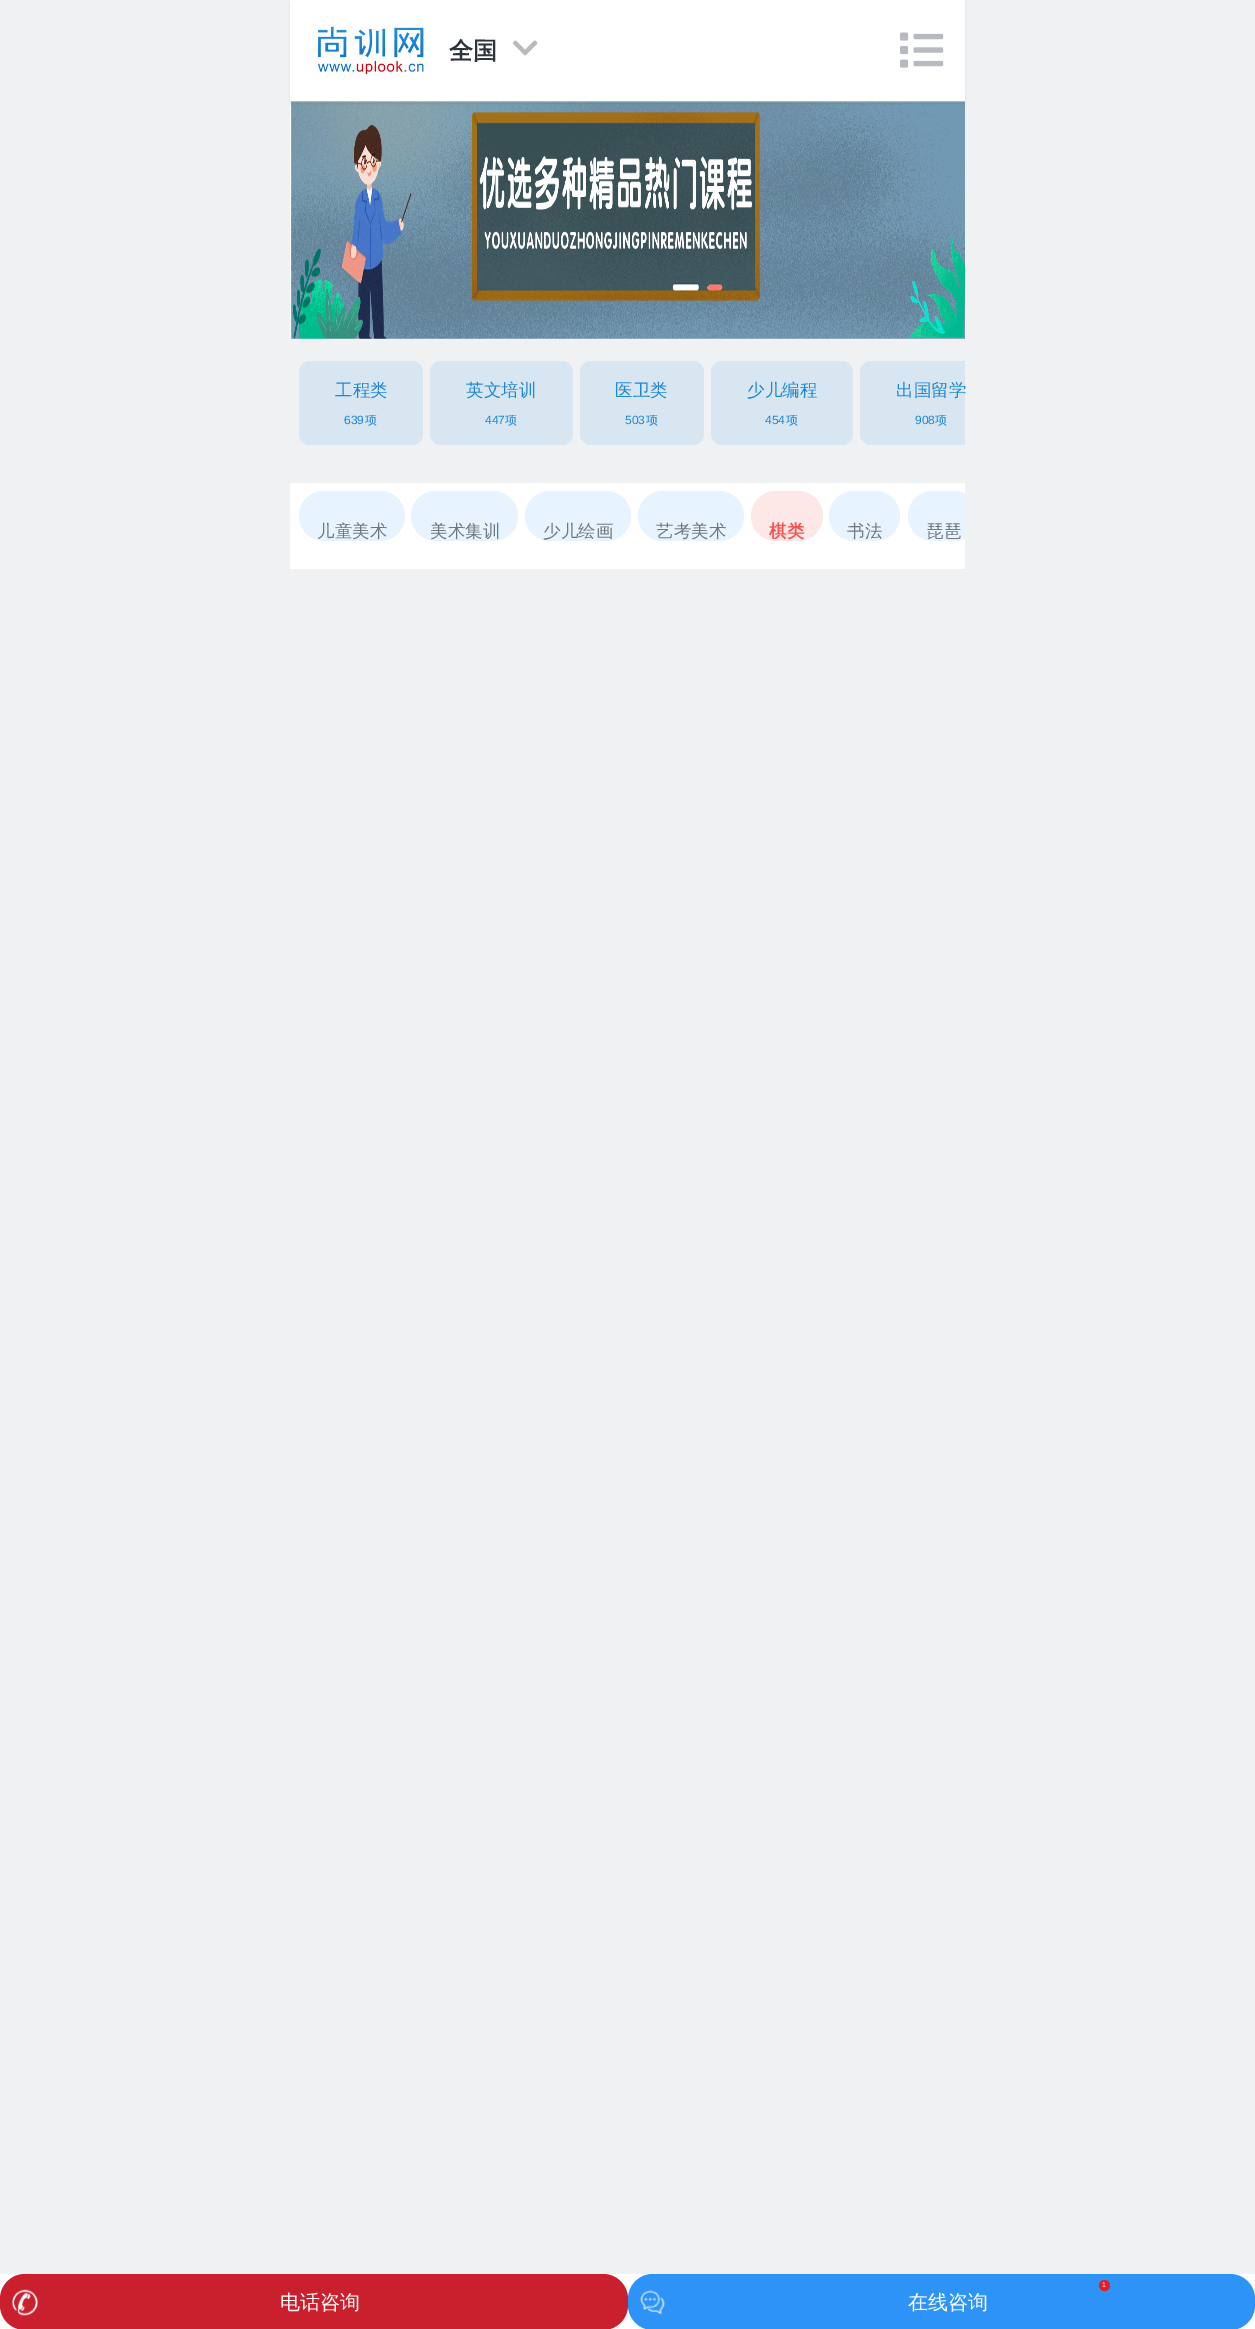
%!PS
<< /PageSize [1255 2329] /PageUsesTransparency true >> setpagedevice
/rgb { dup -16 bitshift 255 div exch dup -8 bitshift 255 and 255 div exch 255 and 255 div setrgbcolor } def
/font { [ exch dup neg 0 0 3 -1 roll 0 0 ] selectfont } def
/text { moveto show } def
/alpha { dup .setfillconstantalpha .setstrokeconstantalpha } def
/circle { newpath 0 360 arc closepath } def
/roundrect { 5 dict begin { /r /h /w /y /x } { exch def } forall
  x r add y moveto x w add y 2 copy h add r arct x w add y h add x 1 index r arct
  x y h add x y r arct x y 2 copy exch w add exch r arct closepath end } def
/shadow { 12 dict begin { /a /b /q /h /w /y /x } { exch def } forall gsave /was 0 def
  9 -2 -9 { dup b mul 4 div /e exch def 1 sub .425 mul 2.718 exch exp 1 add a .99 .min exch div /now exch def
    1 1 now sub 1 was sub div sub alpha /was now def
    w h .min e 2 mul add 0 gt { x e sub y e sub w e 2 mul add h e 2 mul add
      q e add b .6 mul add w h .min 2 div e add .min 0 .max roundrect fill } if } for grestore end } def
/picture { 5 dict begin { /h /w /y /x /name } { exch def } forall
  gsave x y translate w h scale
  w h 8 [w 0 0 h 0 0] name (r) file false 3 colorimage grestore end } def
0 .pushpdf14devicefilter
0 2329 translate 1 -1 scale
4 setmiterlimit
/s1 { /WenQuanYiZenHei-Bold 24 font 16#2B333B rgb } def
/s2 { /WenQuanYiZenHei-Medium 17.5 font 16#1E86D6 rgb } def
/s3 { /LiberationSans-Regular 12 font 16#1E86D6 rgb } def
/s4 { /WenQuanYiZenHei-Medium 12 font 16#1E86D6 rgb } def
/s5 { /WenQuanYiZenHei-Medium 17.5 font 16#71777D rgb } def
/s6 { /WenQuanYiZenHei-Bold 17.5 font 16#F65353 rgb } def
/s7 { /WenQuanYiZenHei-Medium 20 font 16#FFFFFF rgb } def
/s8 { /LiberationSans-Regular 7 font 16#FFFFFF rgb } def
16#EFF1F3 rgb
0 0 1255 2329 rectfill
(pic4.raw) 290 101 675 238 picture
16#1C1F21 rgb
290 3 675 101 0 1 0.1 shadow
16#FFFFFF rgb
290 0 675 101 rectfill
(pic1.raw) 318 26 106 49 picture
s1
(全国) 449 59 text
(pic2.raw) 512 40 26 16 picture
(pic3.raw) 900 32 44 36 picture
16#D8E6F1 rgb
299 361 124 84 11 roundrect fill
s2
(工程类) 335 396 text
s3
(639) 344 424 text
s4
(项) 365 424 text
16#D8E6F1 rgb
430 361 143 84 11 roundrect fill
s2
(英文培训) 466 396 text
s3
(447) 485 424 text
s4
(项) 505 424 text
16#D8E6F1 rgb
580 361 124 84 11 roundrect fill
s2
(医卫类) 615 396 text
s3
(503) 625 424 text
s4
(项) 646 424 text
16#D8E6F1 rgb
711 361 142 84 11 roundrect fill
s2
(少儿编程) 747 396 text
s3
(454) 765 424 text
s4
(项) 786 424 text
16#D8E6F1 rgb
871 361 moveto 965 361 lineto 965 445 lineto 871 445 lineto 865 445 860 440 860 434 curveto 860 372 lineto 860 366 865 361 871 361 curveto closepath fill
s2
(出国留学) 896 396 text
s3
(908) 915 424 text
s4
(项) 935 424 text
16#FFFFFF rgb
290 483 675 86 rectfill
16#E7F3FF rgb
299 491 106 50 25 roundrect fill
s5
(儿童美术) 317 537 text
16#E7F3FF rgb
411 491 107 50 25 roundrect fill
s5
(美术集训) 430 537 text
16#E7F3FF rgb
525 491 106 50 25 roundrect fill
s5
(少儿绘画) 543 537 text
16#E7F3FF rgb
638 491 106 50 25 roundrect fill
s5
(艺考美术) 656 537 text
16#FEE7E7 rgb
751 491 72 50 25 roundrect fill
s6
(棋类) 769 537 text
16#E7F3FF rgb
829 491 71 50 25 roundrect fill
s5
(书法) 847 537 text
gsave
290 483 675 86 rectclip
16#E7F3FF rgb
908 491 71 50 25 roundrect fill
grestore
(琵琶) 926 537 text
16#FFFFFF rgb
0 2274 1255 55 rectfill
16#CA202D rgb
0 2274 628 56 25 roundrect fill
(pic5.raw) 12 2289 26 27 picture
s7
(电话咨询) 280 2309 text
16#2E93F7 rgb
628 2274 627 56 25 roundrect fill
(pic6.raw) 640 2290 25 25 picture
16#E51C23 rgb
1104.5 2285.5 5.5 circle fill
s8
(1) 1102 2287 text
s7
(在线咨询) 908 2309 text
.poppdf14devicefilter showpage
